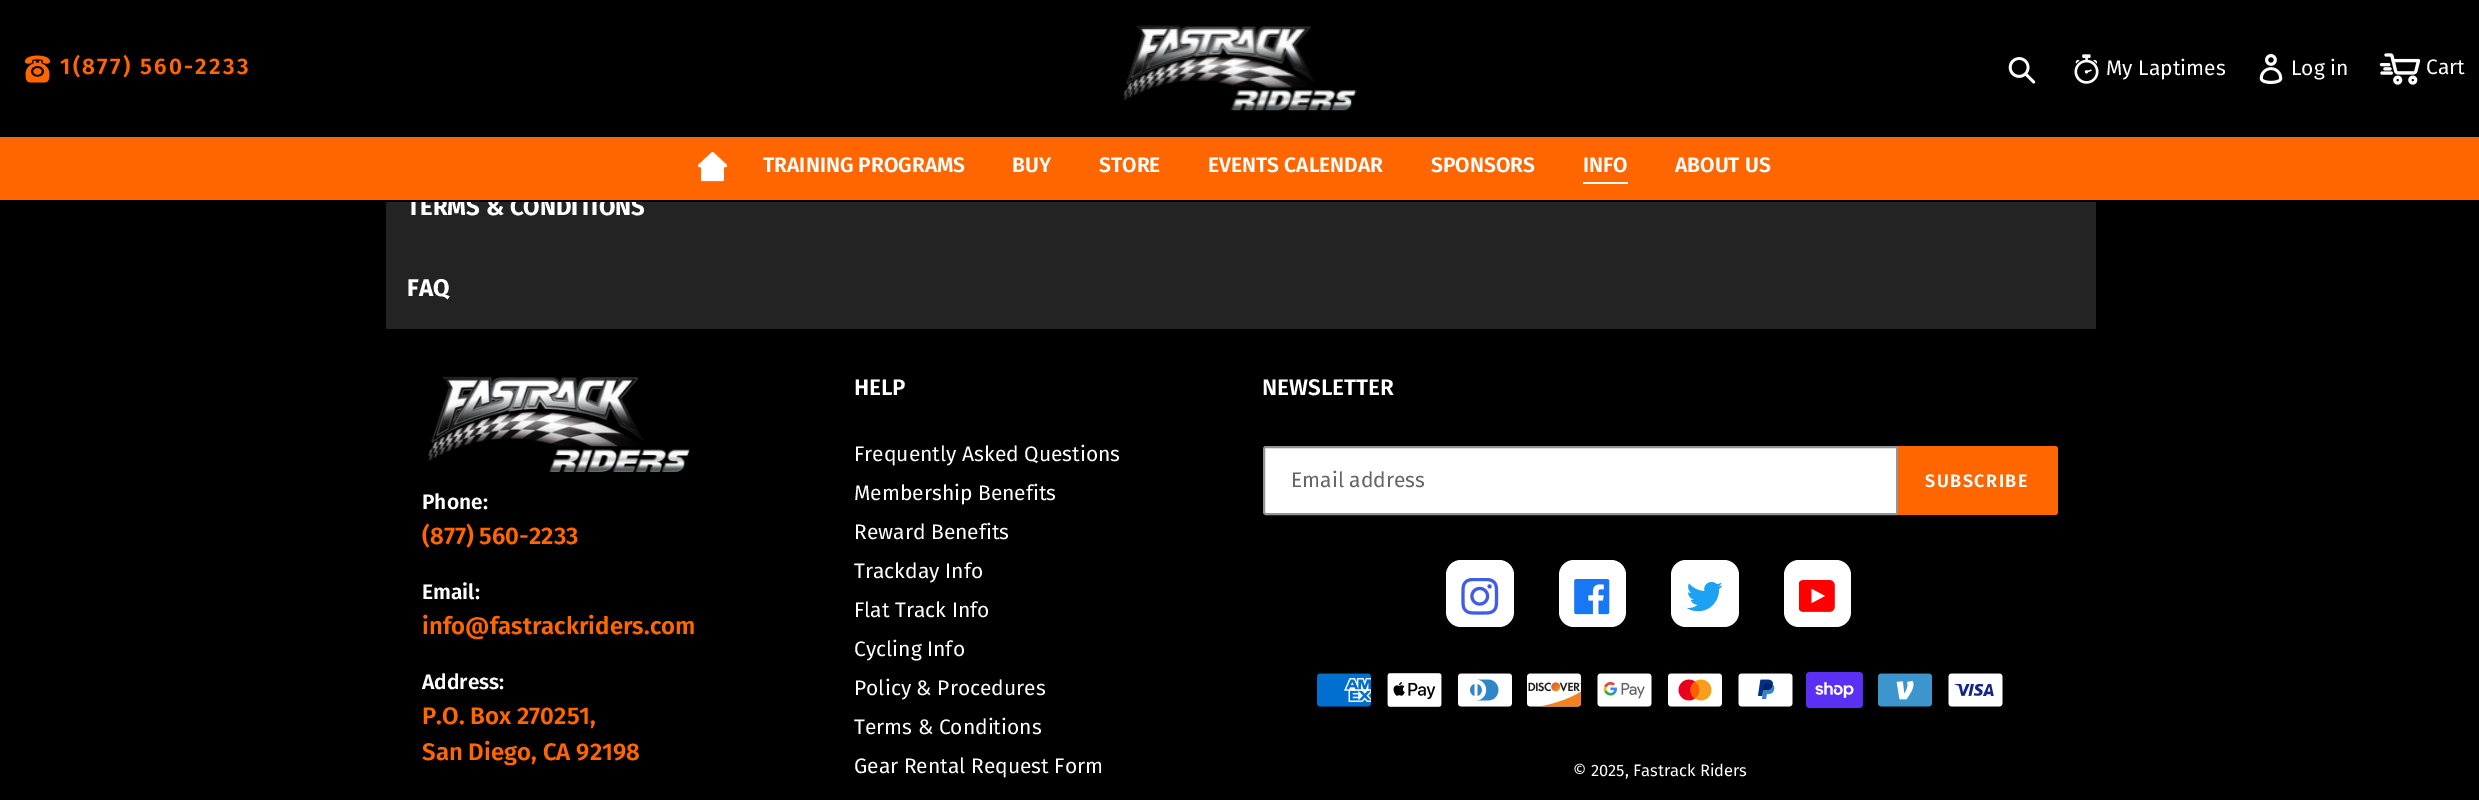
%!PS
<< /PageSize [2479 800] >> setpagedevice
/rgb { dup -16 bitshift 255 div exch dup -8 bitshift 255 and 255 div exch 255 and 255 div setrgbcolor } def
/font { [ exch dup neg 0 0 3 -1 roll 0 0 ] selectfont } def
/text { moveto show } def
/roundrect { 5 dict begin { /r /h /w /y /x } { exch def } forall
  x r add y moveto x w add y 2 copy h add r arct x w add y h add x 1 index r arct
  x y h add x y r arct x y 2 copy exch w add exch r arct closepath end } def
/picture { 5 dict begin { /h /w /y /x /name } { exch def } forall
  gsave x y translate w h scale
  w h 8 [w 0 0 h 0 0] name (r) file false 3 colorimage grestore end } def
0 800 translate 1 -1 scale
4 setmiterlimit
/s1 { /FiraSans-Regular 21 font 16#FFFFFF rgb } def
/s2 { /FiraSans-Bold 24 font 16#FFFFFF rgb } def
/s3 { /FiraSans-SemiBold 21 font 16#FFFFFF rgb } def
/s4 { /FiraSans-SemiBold 24 font 16#FF6600 rgb } def
/s5 { /FiraSans-SemiBold 22.5 font 16#FFFFFF rgb } def
/s6 { /FiraSans-Regular 21 font 16#666666 rgb } def
/s7 { /FiraSans-Regular 16.5 font 16#FFFFFF rgb } def
16#000000 rgb
0 0 2479 800 rectfill
(pic1.raw) 24 55 27 28 picture
/FiraSans-SemiBold 22.5 font
16#FF6600 rgb
60 74 moveto 2.25 0 (1\(877\) 560-2233) ashow
(pic2.raw) 1123 25 234 86 picture
(pic3.raw) 2008 57 28 27 picture
(pic4.raw) 2074 54 25 30 picture
s1
(My Laptimes) 2106 75 text
(pic5.raw) 2259 54 24 30 picture
(Log in) 2291 75 text
(pic6.raw) 2379 53 42 32 picture
(Cart) 2426 74 text
16#232323 rgb
386 202 1710 127 rectfill
s2
(TERMS & CONDITIONS) 407 215 text
16#000000 rgb
407 200 237 2 rectfill
16#FF6600 rgb
0 137 2479 63 rectfill
(pic7.raw) 698 152 30 30 picture
s3
(TRAINING PROGRAMS) 763 172 text
(BUY) 1012 172 text
(STORE) 1099 172 text
(EVENTS CALENDAR) 1208 172 text
(SPONSORS) 1431 172 text
(INFO) 1583 172 text
1583 182 45 2 rectfill
(ABOUT US) 1675 172 text
s2
(FAQ) 407 296 text
(pic8.raw) 427 376 263 96 picture
s3
(Phone:) 422 509 text
s4
(\(877\) 560-2233) 422 544 text
s3
(Email:) 422 599 text
s4
(info@fastrackriders.com) 422 634 text
s3
(Address:) 422 689 text
s4
(P.O. Box 270251,) 422 724 text
(San Diego, CA 92198) 422 760 text
s5
(HELP) 854 395 text
s1
(Frequently Asked Questions) 854 461 text
(Membership Benefits) 854 500 text
(Reward Benefits) 854 539 text
(Trackday Info) 854 578 text
(Flat Track Info) 854 617 text
(Cycling Info) 854 656 text
(Policy & Procedures) 854 695 text
(Terms & Conditions) 854 734 text
(Gear Rental Request Form) 854 773 text
s5
(NEWSLETTER) 1262 395 text
1266 447 moveto 1897 447 lineto 1897 514 lineto 1266 514 lineto 1265 514 1264 513 1264 512 curveto 1264 449 lineto 1264 448 1265 447 1266 447 curveto closepath gsave fill grestore
16#949494 rgb
2 setlinewidth
stroke
s6
(Email address) 1291 487 text
16#FF6600 rgb
1898 446 moveto 2055 446 lineto 2056.5 446 2058 447.5 2058 449 curveto 2058 512 lineto 2058 513.5 2056.5 515 2055 515 curveto 1898 515 lineto closepath fill
/FiraSans-SemiBold 18 font
16#FFFFFF rgb
1925 487 moveto 1.5 0 (SUBSCRIBE) ashow
1446 560 68 67 15 roundrect fill
(pic9.raw) 1461 578 38 37 picture
1559 560 67 67 15 roundrect fill
(pic10.raw) 1574 579 36 36 picture
1671 560 68 67 15 roundrect fill
(pic11.raw) 1686 581 37 31 picture
1784 560 67 67 15 roundrect fill
(pic12.raw) 1799 580 36 32 picture
(pic13.raw) 1317 673 54 34 picture
(pic14.raw) 1387 673 55 34 picture
(pic15.raw) 1458 673 54 34 picture
(pic16.raw) 1527 673 55 34 picture
(pic17.raw) 1597 673 55 34 picture
(pic18.raw) 1668 673 54 34 picture
(pic19.raw) 1738 673 55 34 picture
(pic20.raw) 1806 672 57 36 picture
(pic21.raw) 1878 673 54 34 picture
(pic22.raw) 1948 673 55 34 picture
s7
(© 2025, Fastrack Riders) 1573 776 text
showpage
